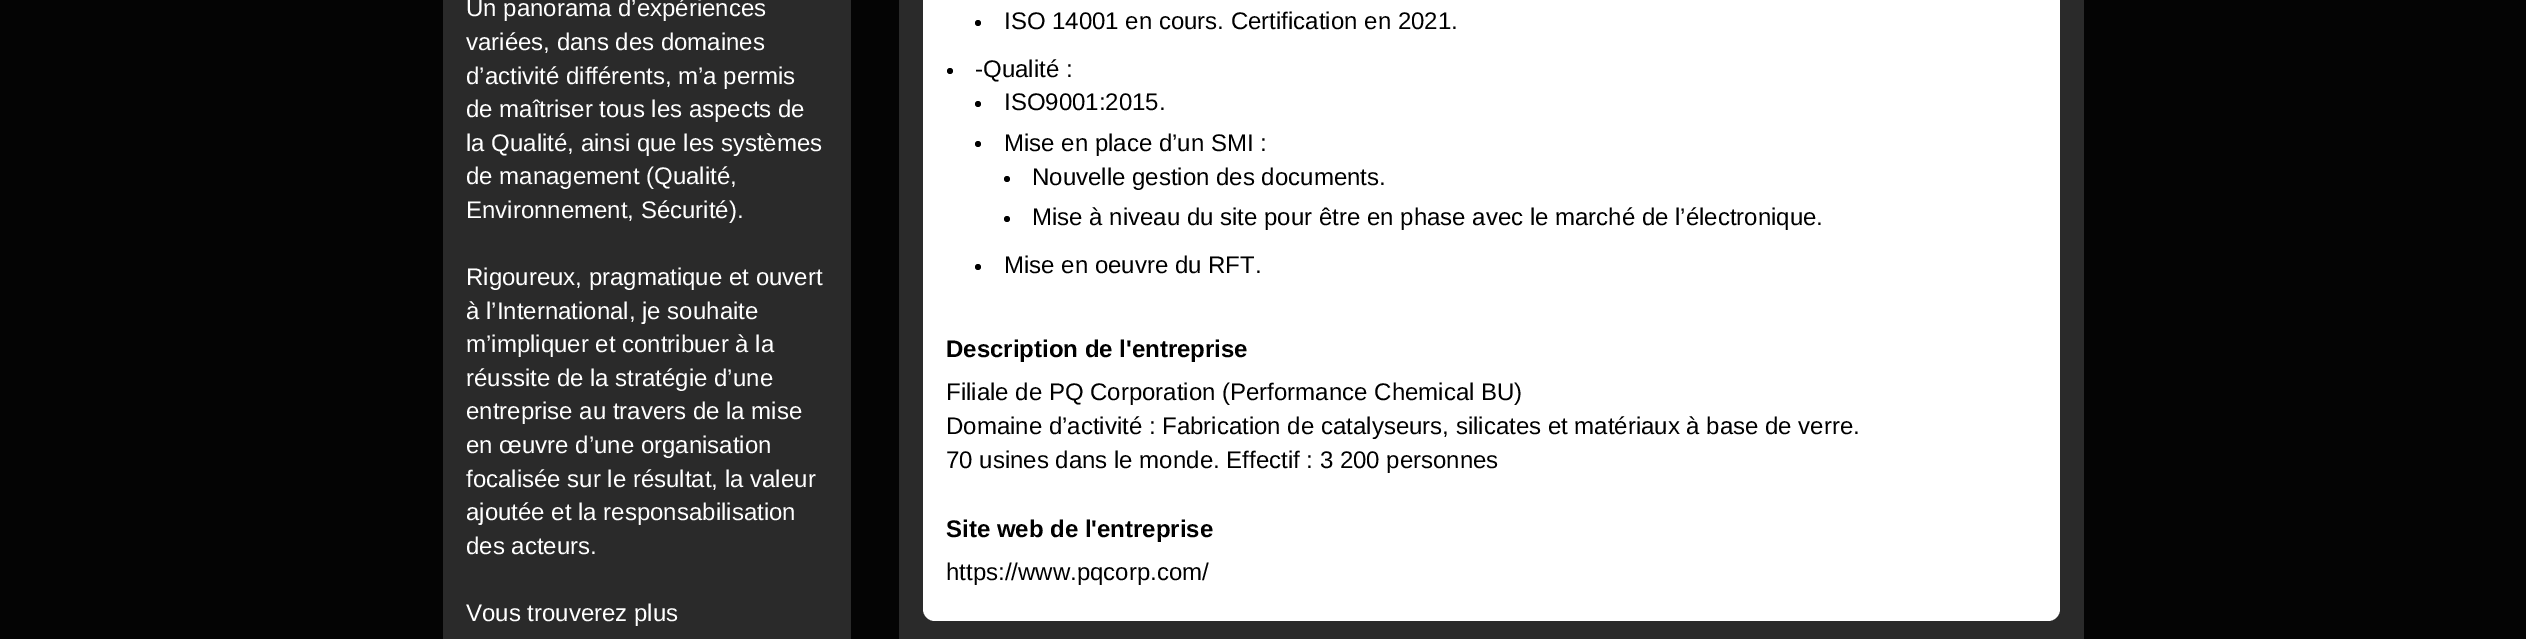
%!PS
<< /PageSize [2526 639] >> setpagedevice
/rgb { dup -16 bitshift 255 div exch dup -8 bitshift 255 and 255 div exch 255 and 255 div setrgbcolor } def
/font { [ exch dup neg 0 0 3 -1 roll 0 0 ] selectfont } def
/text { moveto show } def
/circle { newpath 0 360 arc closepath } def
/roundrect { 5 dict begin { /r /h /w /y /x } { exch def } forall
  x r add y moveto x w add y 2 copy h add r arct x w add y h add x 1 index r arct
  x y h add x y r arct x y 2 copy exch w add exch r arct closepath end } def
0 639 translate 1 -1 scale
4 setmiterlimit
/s1 { /LiberationSans-Regular 24 font 16#FFFFFF rgb } def
/s2 { /LiberationSans-Regular 24 font 16#000000 rgb } def
/s3 { /LiberationSans-Bold 24 font 16#000000 rgb } def
16#040404 rgb
0 0 2526 639 rectfill
16#2A2A2A rgb
443 0 408 639 rectfill
s1
(Un panorama d’expériences) 466 16 text
(variées, dans des domaines) 466 50 text
(d’activité différents, m’a permis) 466 84 text
(de maîtriser tous les aspects de) 466 117 text
(la Qualité, ainsi que les systèmes) 466 151 text
(de management \(Qualité,) 466 184 text
(Environnement, Sécurité\).) 466 218 text
(Rigoureux, pragmatique et ouvert) 466 285 text
(à l’International, je souhaite) 466 319 text
(m’impliquer et contribuer à la) 466 352 text
(réussite de la stratégie d’une) 466 386 text
(entreprise au travers de la mise) 466 419 text
(en œuvre d’une organisation) 466 453 text
(focalisée sur le résultat, la valeur) 466 487 text
(ajoutée et la responsabilisation) 466 520 text
(des acteurs.) 466 554 text
(Vous trouverez plus) 466 621 text
16#2A2A2A rgb
899 0 1185 639 rectfill
16#FFFFFF rgb
923 -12 1137 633 12 roundrect fill
16#000000 rgb
978 23 3 circle fill
(ISO 14001 en cours. Certification en 2021.) 1004 29 text
950 71 3 circle fill
(-Qualité :) 975 77 text
978 104 3 circle fill
(ISO9001:2015.) 1004 110 text
978 144 3 circle fill
(Mise en place d’un SMI :) 1004 151 text
1007 179 3 circle fill
(Nouvelle gestion des documents.) 1032 185 text
1007 219 3 circle fill
(Mise à niveau du site pour être en phase avec le marché de l’électronique.) 1032 225 text
978 267 3 circle fill
(Mise en oeuvre du RFT.) 1004 273 text
s3
(Description de l'entreprise) 946 357 text
s2
(Filiale de PQ Corporation \(Performance Chemical BU\)) 946 400 text
(Domaine d’activité : Fabrication de catalyseurs, silicates et matériaux à base de verre.) 946 434 text
(70 usines dans le monde. Effectif : 3 200 personnes) 946 468 text
s3
(Site web de l'entreprise) 946 537 text
s2
(https://www.pqcorp.com/) 946 580 text
showpage
